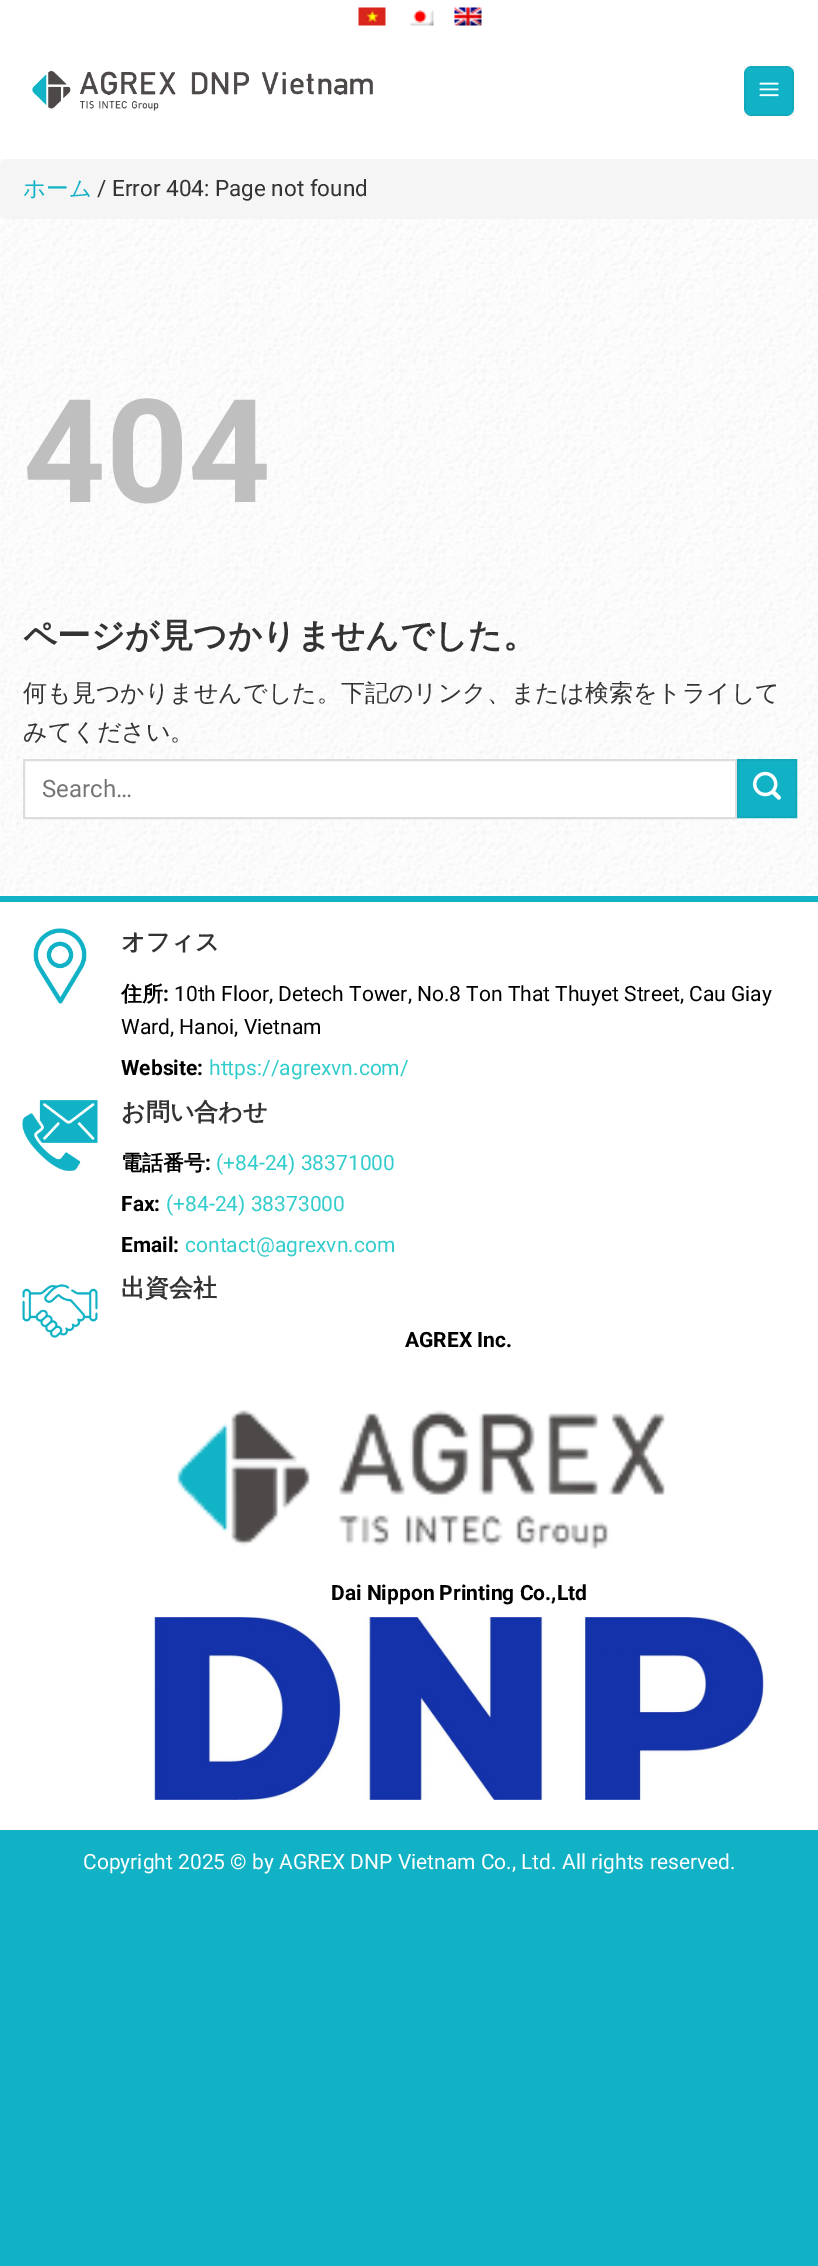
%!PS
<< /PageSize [818 2266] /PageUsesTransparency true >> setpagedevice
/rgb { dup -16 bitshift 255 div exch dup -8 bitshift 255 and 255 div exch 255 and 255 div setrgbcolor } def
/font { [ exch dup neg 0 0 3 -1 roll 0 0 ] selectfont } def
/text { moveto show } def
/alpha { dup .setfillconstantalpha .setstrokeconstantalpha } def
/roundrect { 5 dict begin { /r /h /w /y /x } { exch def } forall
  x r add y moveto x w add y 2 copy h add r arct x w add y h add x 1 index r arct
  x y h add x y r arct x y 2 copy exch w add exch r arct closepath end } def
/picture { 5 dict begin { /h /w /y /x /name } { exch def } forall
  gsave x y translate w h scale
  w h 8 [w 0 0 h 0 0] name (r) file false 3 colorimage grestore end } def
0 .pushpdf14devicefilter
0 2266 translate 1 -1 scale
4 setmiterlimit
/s1 { /WenQuanYiZenHei-Medium 22.5 font 16#12B2C6 rgb } def
/s2 { /Roboto-Regular 22.5 font 16#333333 rgb } def
/s3 { /Roboto-Bold 144 font 16#BFBFBF rgb } def
/s4 { /WenQuanYiZenHei-Bold 33.6 font 16#333333 rgb } def
/s5 { /WenQuanYiZenHei-Medium 24 font 16#333333 rgb } def
/s6 { /Roboto-Regular 24 font 16#757575 rgb } def
/s7 { /WenQuanYiZenHei-Bold 24 font 16#333333 rgb } def
/s8 { /WenQuanYiZenHei-Bold 21 font 16#000000 rgb } def
/s9 { /Roboto-Bold 21 font 16#000000 rgb } def
/s10 { /Roboto-Regular 21 font 16#000000 rgb } def
/s11 { /Roboto-Regular 21 font 16#33CCCC rgb } def
/s12 { /Roboto-Regular 21 font 16#FFFFFF rgb } def
16#12B2C6 rgb
0 0 818 2266 rectfill
16#FFFFFF rgb
0 0 818 1830 rectfill
(pic1.raw) 358 7 28 19 picture
(pic2.raw) 409 10 25 16 picture
(pic3.raw) 454 7 28 19 picture
(pic4.raw) 32 70 341 41 picture
16#12B2C6 rgb
744 66 50 50 8 roundrect fill
0.05 alpha
16#000000 rgb
2 setlinewidth
745 67 48 48 rectstroke
1 alpha
(pic5.raw) 759 82 20 15 picture
(pic6.raw) 0 159 818 90 picture
16#F5F5F5 rgb
0 159 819 60 6 roundrect fill
s1
(ホーム) 23 196 text
s2
(/ Error 404: Page not found) 97 196 text
(pic7.raw) 0 249 818 647 picture
s3
(404) 23 502 text
s4
(ページが見つかりませんでした。) 23 647 text
s5
(何も見つかりませんでした。下記のリンク、または検索をトライして) 23 701 text
(みてください。) 23 740 text
16#FFFFFF rgb
24 760 moveto 736 760 lineto 736 818 lineto 24 818 lineto closepath gsave fill grestore
16#DDDDDD rgb
stroke
s6
(Search…) 42 797 text
16#12B2C6 rgb
738 760 moveto 796 760 lineto 796 817 lineto 738 817 lineto closepath gsave fill grestore
16#11A9BC rgb
stroke
(pic8.raw) 753 771 28 29 picture
16#12B2C6 rgb
0 896 818 6 rectfill
(pic9.raw) 33 928 54 76 picture
s7
(オフィス) 121 950 text
s8
(住所) 121 1001 text
s9
(:) 163 1001 text
s10
(10th Floor, Detech Tower, No.8 Ton That Thuyet Street, Cau Giay) 174 1001 text
(Ward, Hanoi, Vietnam) 121 1034 text
s9
(Website:) 121 1075 text
s11
(https://agrexvn.com/) 209 1075 text
(pic10.raw) 22 1100 76 71 picture
s7
(お問い合わせ) 121 1120 text
s8
(電話番号) 121 1170 text
s9
(:) 205 1170 text
s11
(\(+84-24\) 38371000) 216 1170 text
s9
(Fax:) 121 1211 text
s11
(\(+84-24\) 38373000) 166 1211 text
s9
(Email:) 121 1252 text
s11
(contact@agrexvn.com) 185 1252 text
(pic11.raw) 22 1284 76 54 picture
s7
(出資会社) 121 1296 text
s9
(AGREX Inc.) 405 1347 text
(pic12.raw) 177 1410 488 139 picture
(Dai Nippon Printing Co.,Ltd) 331 1600 text
(pic13.raw) 154 1617 610 183 picture
s12
(Copyright 2025 © by AGREX DNP Vietnam Co., Ltd. All rights reserved.) 83 1869 text
.poppdf14devicefilter showpage
